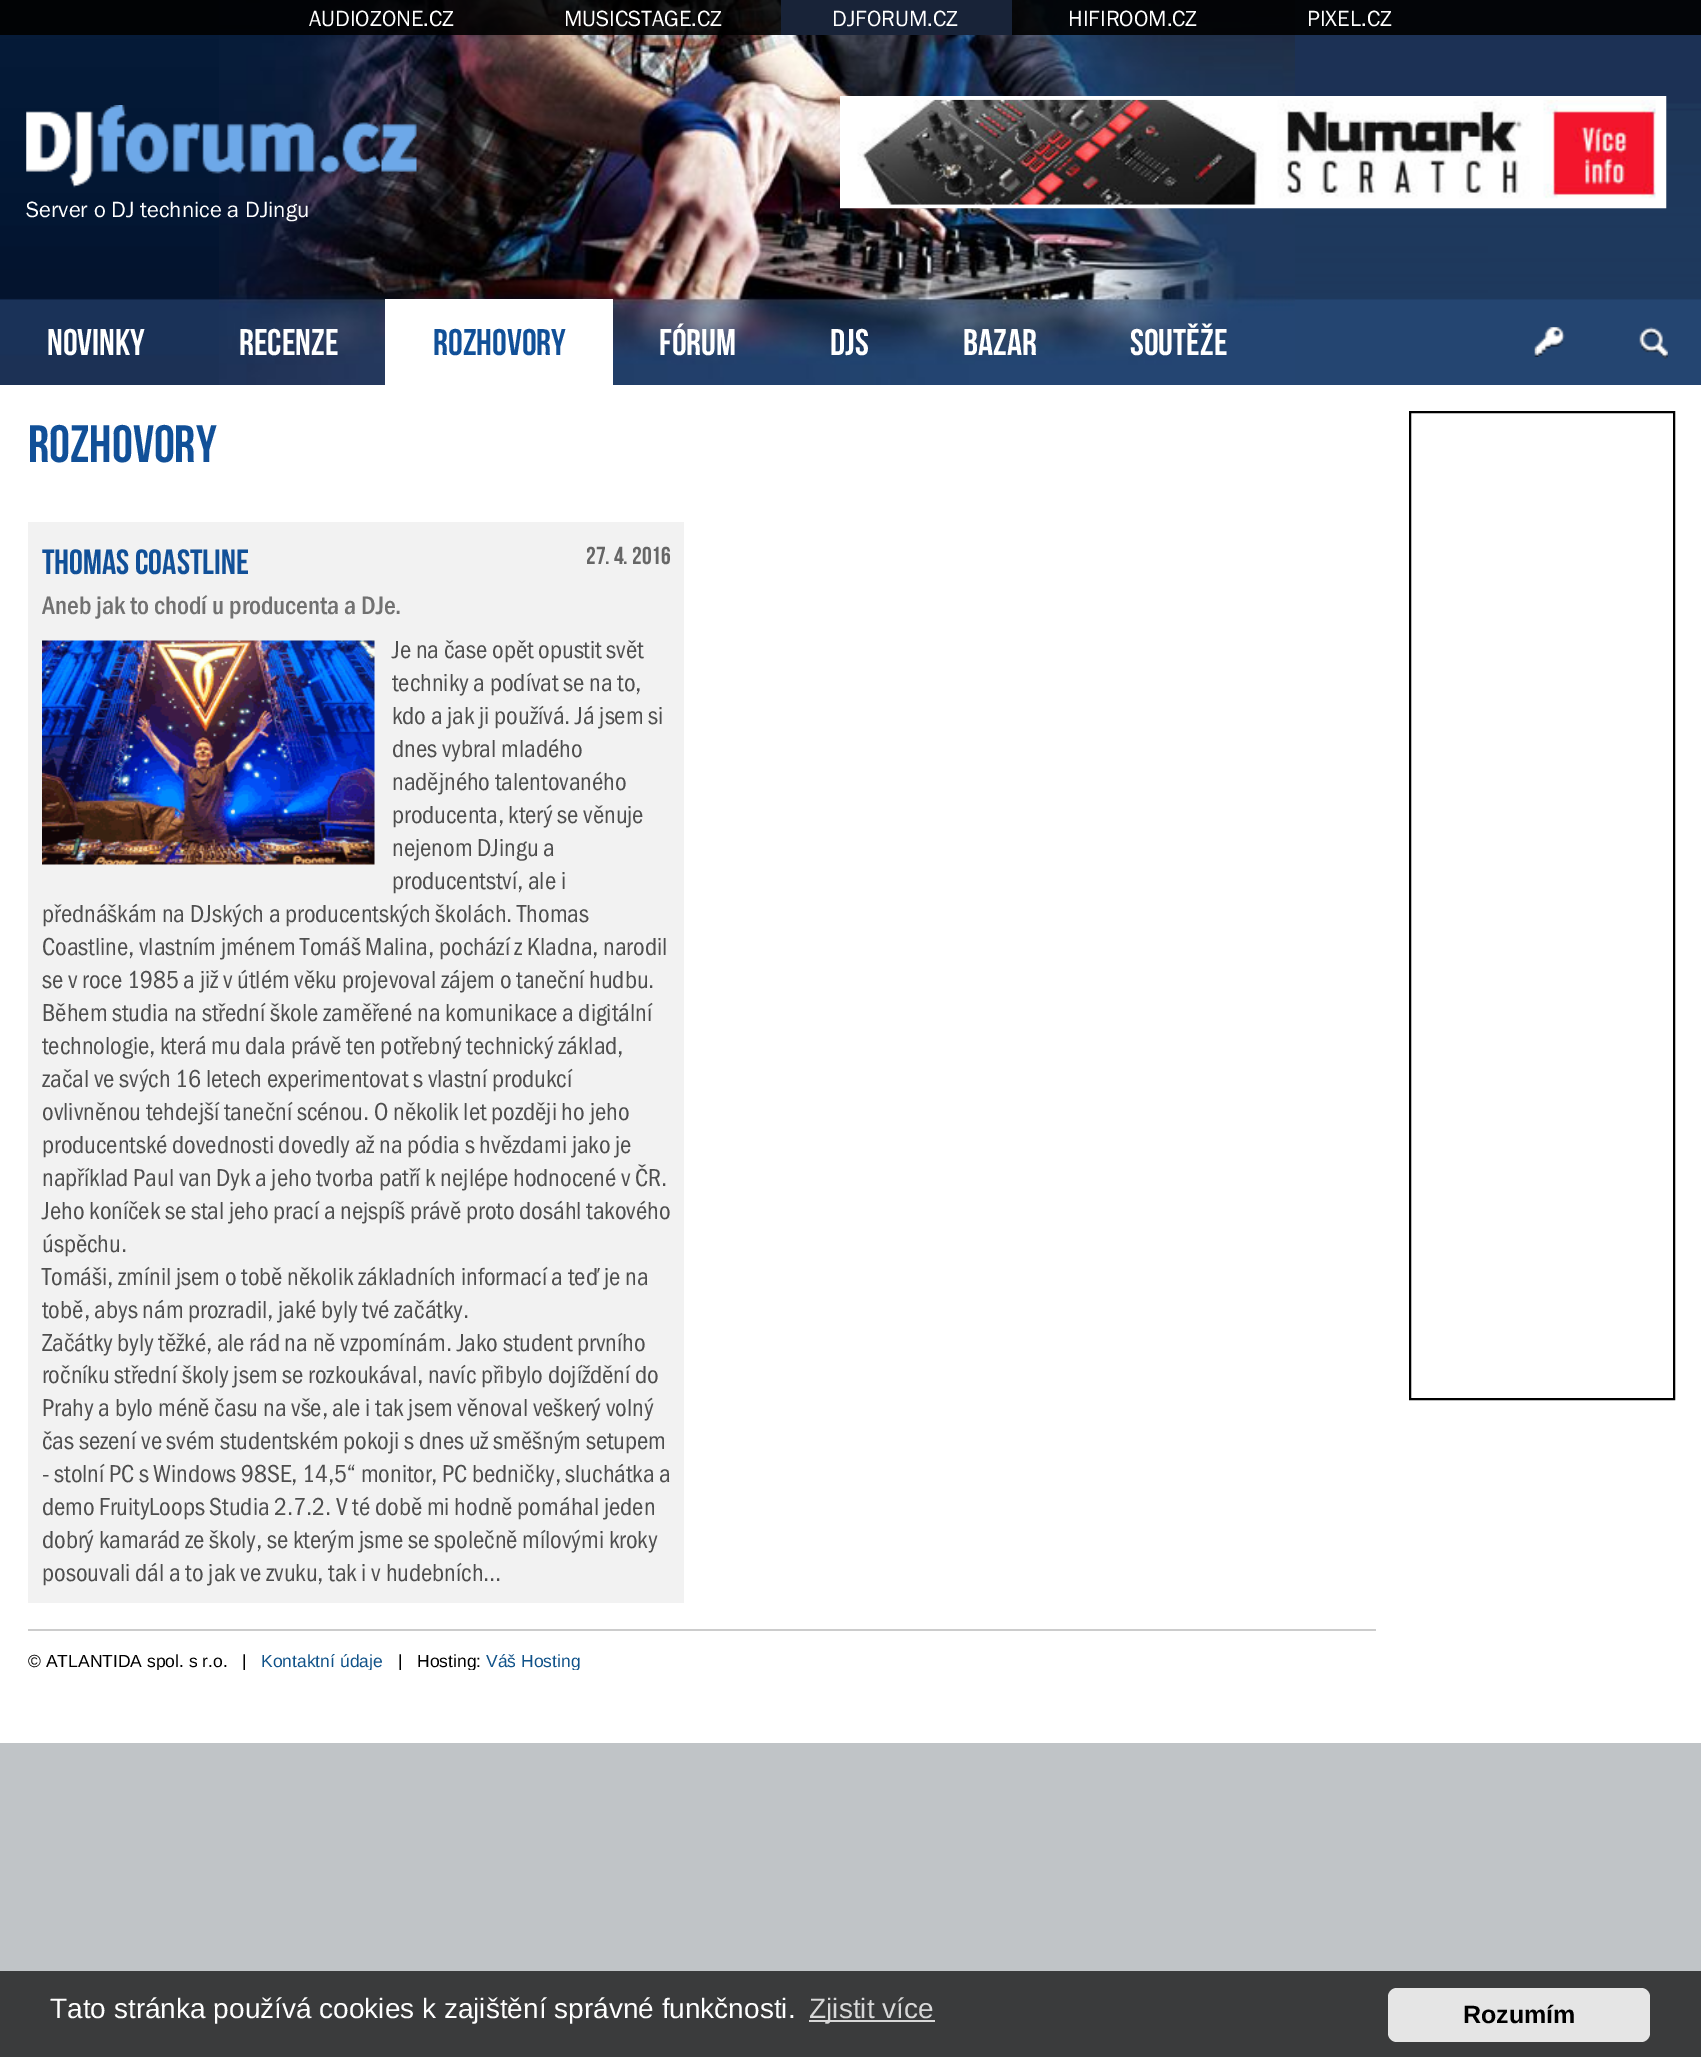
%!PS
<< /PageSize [1701 2057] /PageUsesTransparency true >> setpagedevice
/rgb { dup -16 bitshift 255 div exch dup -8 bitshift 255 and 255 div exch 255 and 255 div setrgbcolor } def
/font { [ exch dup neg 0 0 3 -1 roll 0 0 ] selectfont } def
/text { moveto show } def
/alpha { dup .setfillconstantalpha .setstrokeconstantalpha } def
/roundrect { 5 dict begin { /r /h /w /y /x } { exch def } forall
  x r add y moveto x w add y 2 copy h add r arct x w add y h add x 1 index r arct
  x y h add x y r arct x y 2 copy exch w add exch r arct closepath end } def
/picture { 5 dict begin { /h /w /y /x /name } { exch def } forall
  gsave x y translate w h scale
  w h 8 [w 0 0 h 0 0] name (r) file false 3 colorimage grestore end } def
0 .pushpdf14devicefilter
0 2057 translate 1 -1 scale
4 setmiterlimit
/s1 { /FranklinGothic-Regular 22.75 font 16#FFFFFF rgb } def
/s2 { /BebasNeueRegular-Regular 37 font 16#FFFFFF rgb } def
/s3 { /BebasNeueRegular-Regular 37 font 16#115098 rgb } def
/s4 { /BebasNeueRegular-Regular 52.5 font 16#115098 rgb } def
/s5 { /BebasNeueRegular-Regular 35 font 16#115098 rgb } def
/s6 { /BebasNeueRegular-Regular 24.5 font 16#666666 rgb } def
/s7 { /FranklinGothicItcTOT-Medium 26.25 font 16#717171 rgb } def
/s8 { /FranklinGothicItcTOT-Regular 25.4 font 16#4E4E4E rgb } def
/s9 { /LiberationSans-Regular 17.5 font 16#000000 rgb } def
/s10 { /LiberationSans-Regular 17.5 font 16#105289 rgb } def
/s11 { /LiberationSans-Regular 28 font 16#FFFFFF rgb } def
/s12 { /LiberationSans-Regular 28 font 16#D8D8D8 rgb } def
/s13 { /LiberationSans-Bold 25 font 16#000000 rgb } def
16#C0C4C7 rgb
0 0 1701 2057 rectfill
(pic1.raw) 0 0 1701 385 picture
(pic2.raw) 219 0 1076 385 picture
0.9 alpha
16#000000 rgb
0 0 1701 35 rectfill
1 alpha
s1
(AUDIOZONE.CZ) 309 26 text
(MUSICSTAGE.CZ) 564 26 text
16#182338 rgb
781 0 231 35 rectfill
s1
(DJFORUM.CZ) 832 26 text
(HIFIROOM.CZ) 1068 26 text
(PIXEL.CZ) 1307 26 text
4 setlinewidth
842 98 822 108 rectstroke
(pic3.raw) 844 99 818 106 picture
(pic4.raw) 26 105 391 83 picture
(Server o DJ technice a DJingu) 26 217 text
s2
(NOVINKY) 47 355 text
(RECENZE) 239 355 text
385 299 228 86 rectfill
s3
(ROZHOVORY) 433 355 text
s2
(FÓRUM) 659 355 text
(DJS) 830 355 text
(BAZAR) 963 355 text
(SOUTĚŽE) 1130 355 text
(pic5.raw) 1534 327 31 30 picture
(pic6.raw) 1639 327 29 32 picture
0 385 1701 1358 rectfill
s4
(Rozhovory) 28 462 text
16#F2F2F2 rgb
28 522 656 1081 rectfill
s5
(Thomas Coastline) 42 574 text
s6
(27. 4. 2016) 586 564 text
s7
(Aneb jak to chodí u producenta a DJe.) 42 614 text
s8
(Je na čase opět opustit svět) 392 658 text
(techniky a podívat se na to,) 392 691 text
(kdo a jak ji používá. Já jsem si) 392 724 text
(dnes vybral mladého) 392 757 text
(nadějného talentovaného) 392 790 text
(producenta, který se věnuje) 392 823 text
(nejenom DJingu a) 392 856 text
(producentství, ale i) 392 889 text
(přednáškám na DJských a producentských školách. Thomas) 42 922 text
(Coastline, vlastním jménem Tomáš Malina, pochází z Kladna, narodil) 42 955 text
(se v roce 1985 a již v útlém věku projevoval zájem o taneční hudbu.) 42 988 text
(Během studia na střední škole zaměřené na komunikace a digitální) 42 1021 text
(technologie, která mu dala právě ten potřebný technický základ,) 42 1054 text
(začal ve svých 16 letech experimentovat s vlastní produkcí) 42 1087 text
(ovlivněnou tehdejší taneční scénou. O několik let později ho jeho) 42 1120 text
(producentské dovednosti dovedly až na pódia s hvězdami jako je) 42 1153 text
(například Paul van Dyk a jeho tvorba patří k nejlépe hodnocené v ČR.) 42 1186 text
(Jeho koníček se stal jeho prací a nejspíš právě proto dosáhl takového) 42 1219 text
(úspěchu.) 42 1252 text
(Tomáši, zmínil jsem o tobě několik základních informací a teď je na) 42 1285 text
(tobě, abys nám prozradil, jaké byly tvé začátky.) 42 1318 text
(Začátky byly těžké, ale rád na ně vzpomínám. Jako student prvního) 42 1351 text
(ročníku střední školy jsem se rozkoukával, navíc přibylo dojíždění do) 42 1383 text
(Prahy a bylo méně času na vše, ale i tak jsem věnoval veškerý volný) 42 1416 text
(čas sezení ve svém studentském pokoji s dnes už směšným setupem) 42 1449 text
(- stolní PC s Windows 98SE, 14,5“ monitor, PC bedničky, sluchátka a) 42 1482 text
(demo FruityLoops Studia 2.7.2. V té době mi hodně pomáhal jeden) 42 1515 text
(dobrý kamarád ze školy, se kterým jsme se společně mílovými kroky) 42 1548 text
(posouvali dál a to jak ve zvuku, tak i v hudebních...) 42 1581 text
(pic7.raw) 42 640 333 225 picture
16#CCCCCC rgb
28 1629 1348 2 rectfill
gsave
28 1650 1348 20 rectclip
s9
(© ATLANTIDA spol. s r.o.) 28 1667 text
(|) 242 1667 text
s10
(Kontaktní údaje) 261 1667 text
s9
(|   Hosting:) 398 1667 text
s10
(Váš Hosting) 486 1667 text
grestore
16#000000 rgb
2 setlinewidth
1410 412 264 987 rectstroke
16#3A3B3C rgb
0 1971 1701 86 rectfill
s11
(Tato stránka používá cookies k zajištění správné funkčnosti.) 50 2018 text
16#D8D8D8 rgb
809 2020 126 2 rectfill
(Zjistit více) 809 2018 text
16#E5E5E5 rgb
1388 1988 262 54 9 roundrect fill
s13
(Rozumím) 1463 2023 text
.poppdf14devicefilter showpage
